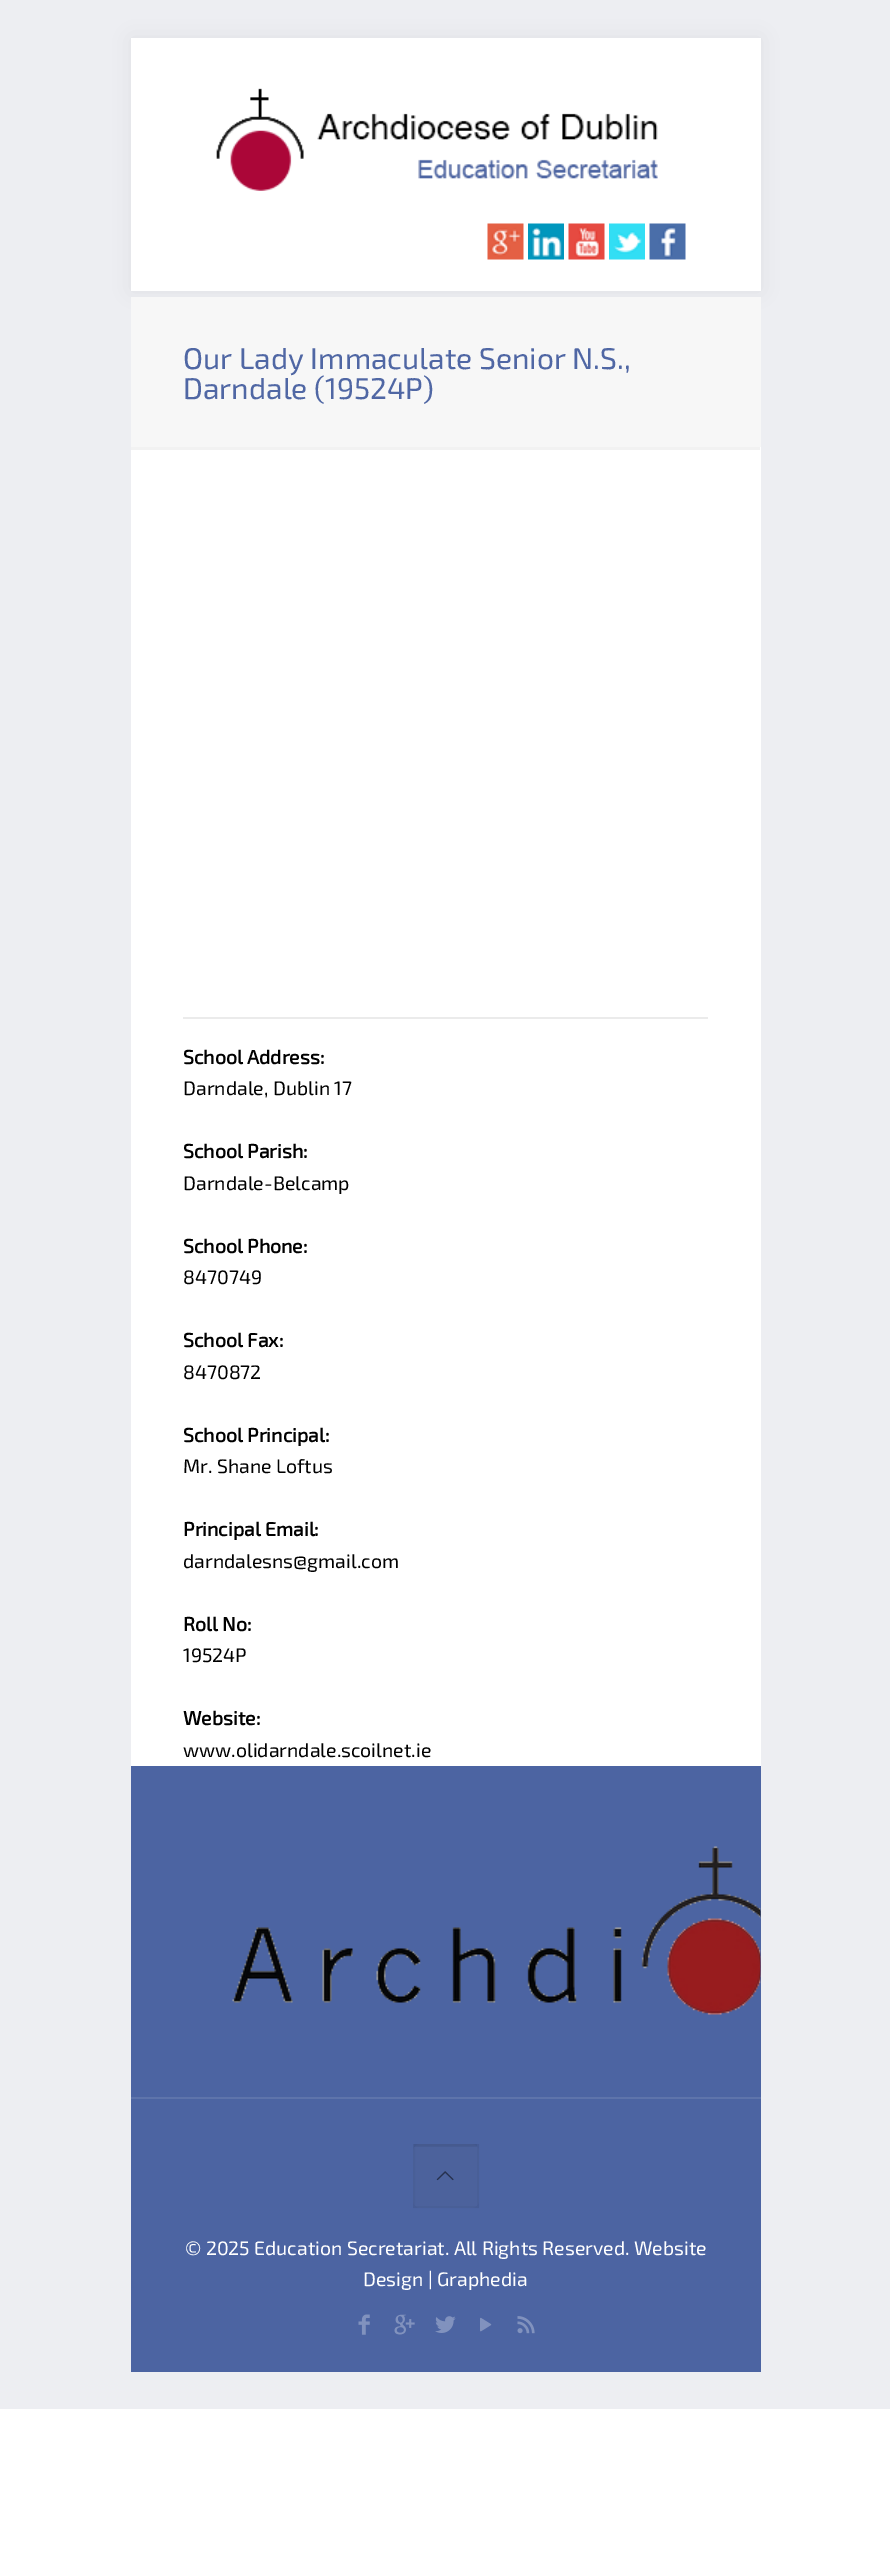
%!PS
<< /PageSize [890 2552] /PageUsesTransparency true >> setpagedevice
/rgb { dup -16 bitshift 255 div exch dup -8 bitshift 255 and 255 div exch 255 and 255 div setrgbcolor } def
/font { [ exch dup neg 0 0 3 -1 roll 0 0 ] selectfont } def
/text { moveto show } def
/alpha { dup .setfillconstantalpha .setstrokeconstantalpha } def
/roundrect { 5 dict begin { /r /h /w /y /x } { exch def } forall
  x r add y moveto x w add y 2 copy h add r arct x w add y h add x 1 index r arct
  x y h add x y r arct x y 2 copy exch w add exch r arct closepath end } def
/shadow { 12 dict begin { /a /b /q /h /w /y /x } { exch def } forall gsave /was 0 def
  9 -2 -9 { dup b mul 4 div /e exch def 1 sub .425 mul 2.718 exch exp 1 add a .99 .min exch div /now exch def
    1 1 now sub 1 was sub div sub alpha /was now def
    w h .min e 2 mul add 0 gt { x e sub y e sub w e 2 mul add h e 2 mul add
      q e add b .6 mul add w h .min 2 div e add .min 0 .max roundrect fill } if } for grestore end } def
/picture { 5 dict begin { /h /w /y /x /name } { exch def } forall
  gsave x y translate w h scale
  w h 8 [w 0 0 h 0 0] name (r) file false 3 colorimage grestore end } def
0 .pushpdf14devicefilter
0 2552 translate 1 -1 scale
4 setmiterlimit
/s1 { /Exo2-Regular 30 font 16#5067A4 rgb } def
/s2 { /Exo2-Bold 19.5 font 16#000000 rgb } def
/s3 { /Exo2-Regular 19.5 font 16#000000 rgb } def
/s4 { /Exo2-Regular 19.5 font 16#FFFFFF rgb } def
16#FFFFFF rgb
0 0 890 2552 rectfill
16#EDEEF2 rgb
0 0 890 2409 rectfill
16#000000 rgb
131 38 630 253 0 11 0.06 shadow
16#FFFFFF rgb
131 38 630 253 rectfill
(pic1.raw) 216 88 442 103 picture
(pic2.raw) 487 223 37 37 picture
(pic3.raw) 528 223 36 37 picture
(pic4.raw) 568 223 37 37 picture
(pic5.raw) 609 223 36 37 picture
(pic6.raw) 649 223 37 37 picture
16#F7F7F7 rgb
131 297 630 150 rectfill
s1
(Our Lady Immaculate Senior N.S.,) 183 369 text
(Darndale \(19524P\)) 183 399 text
16#FFFFFF rgb
131 447 630 1319 rectfill
16#F2F2F2 rgb
131 447 629 3 rectfill
16#EBEBEB rgb
183 1017 525 2 rectfill
s2
(School Address:) 183 1064 text
s3
(Darndale, Dublin 17) 183 1095 text
s2
(School Parish:) 183 1158 text
s3
(Darndale-Belcamp) 183 1190 text
s2
(School Phone:) 183 1253 text
s3
(8470749) 183 1284 text
s2
(School Fax:) 183 1347 text
s3
(8470872) 183 1379 text
s2
(School Principal:) 183 1442 text
s3
(Mr. Shane Loftus) 183 1473 text
s2
(Principal Email:) 183 1536 text
s3
(darndalesns@gmail.com) 183 1568 text
s2
(Roll No:) 183 1631 text
s3
(19524P) 183 1662 text
s2
(Website:) 183 1725 text
s3
(www.olidarndale.scoilnet.ie) 183 1757 text
16#4C64A2 rgb
131 1766 630 606 rectfill
(pic7.raw) 232 1846 529 169 picture
16#5E74AB rgb
131 2097 630 2 rectfill
16#5067A4 rgb
413 2144 66 64 8 roundrect fill
0.05 alpha
16#000000 rgb
414 2144 63 3 rectfill
0.03 alpha
2 setlinewidth
414 2145 64 62 rectstroke
0.05 alpha
413 2144 66 64 rectfill
1 alpha
(pic8.raw) 436 2171 18 10 picture
s4
(© 2025 Education Secretariat. All Rights Reserved. Website) 185 2255 text
(Design | Graphedia) 363 2286 text
(pic9.raw) 358 2314 12 21 picture
(pic10.raw) 394 2314 21 21 picture
(pic11.raw) 435 2316 21 17 picture
(pic12.raw) 480 2317 12 15 picture
(pic13.raw) 517 2316 18 18 picture
.poppdf14devicefilter showpage
